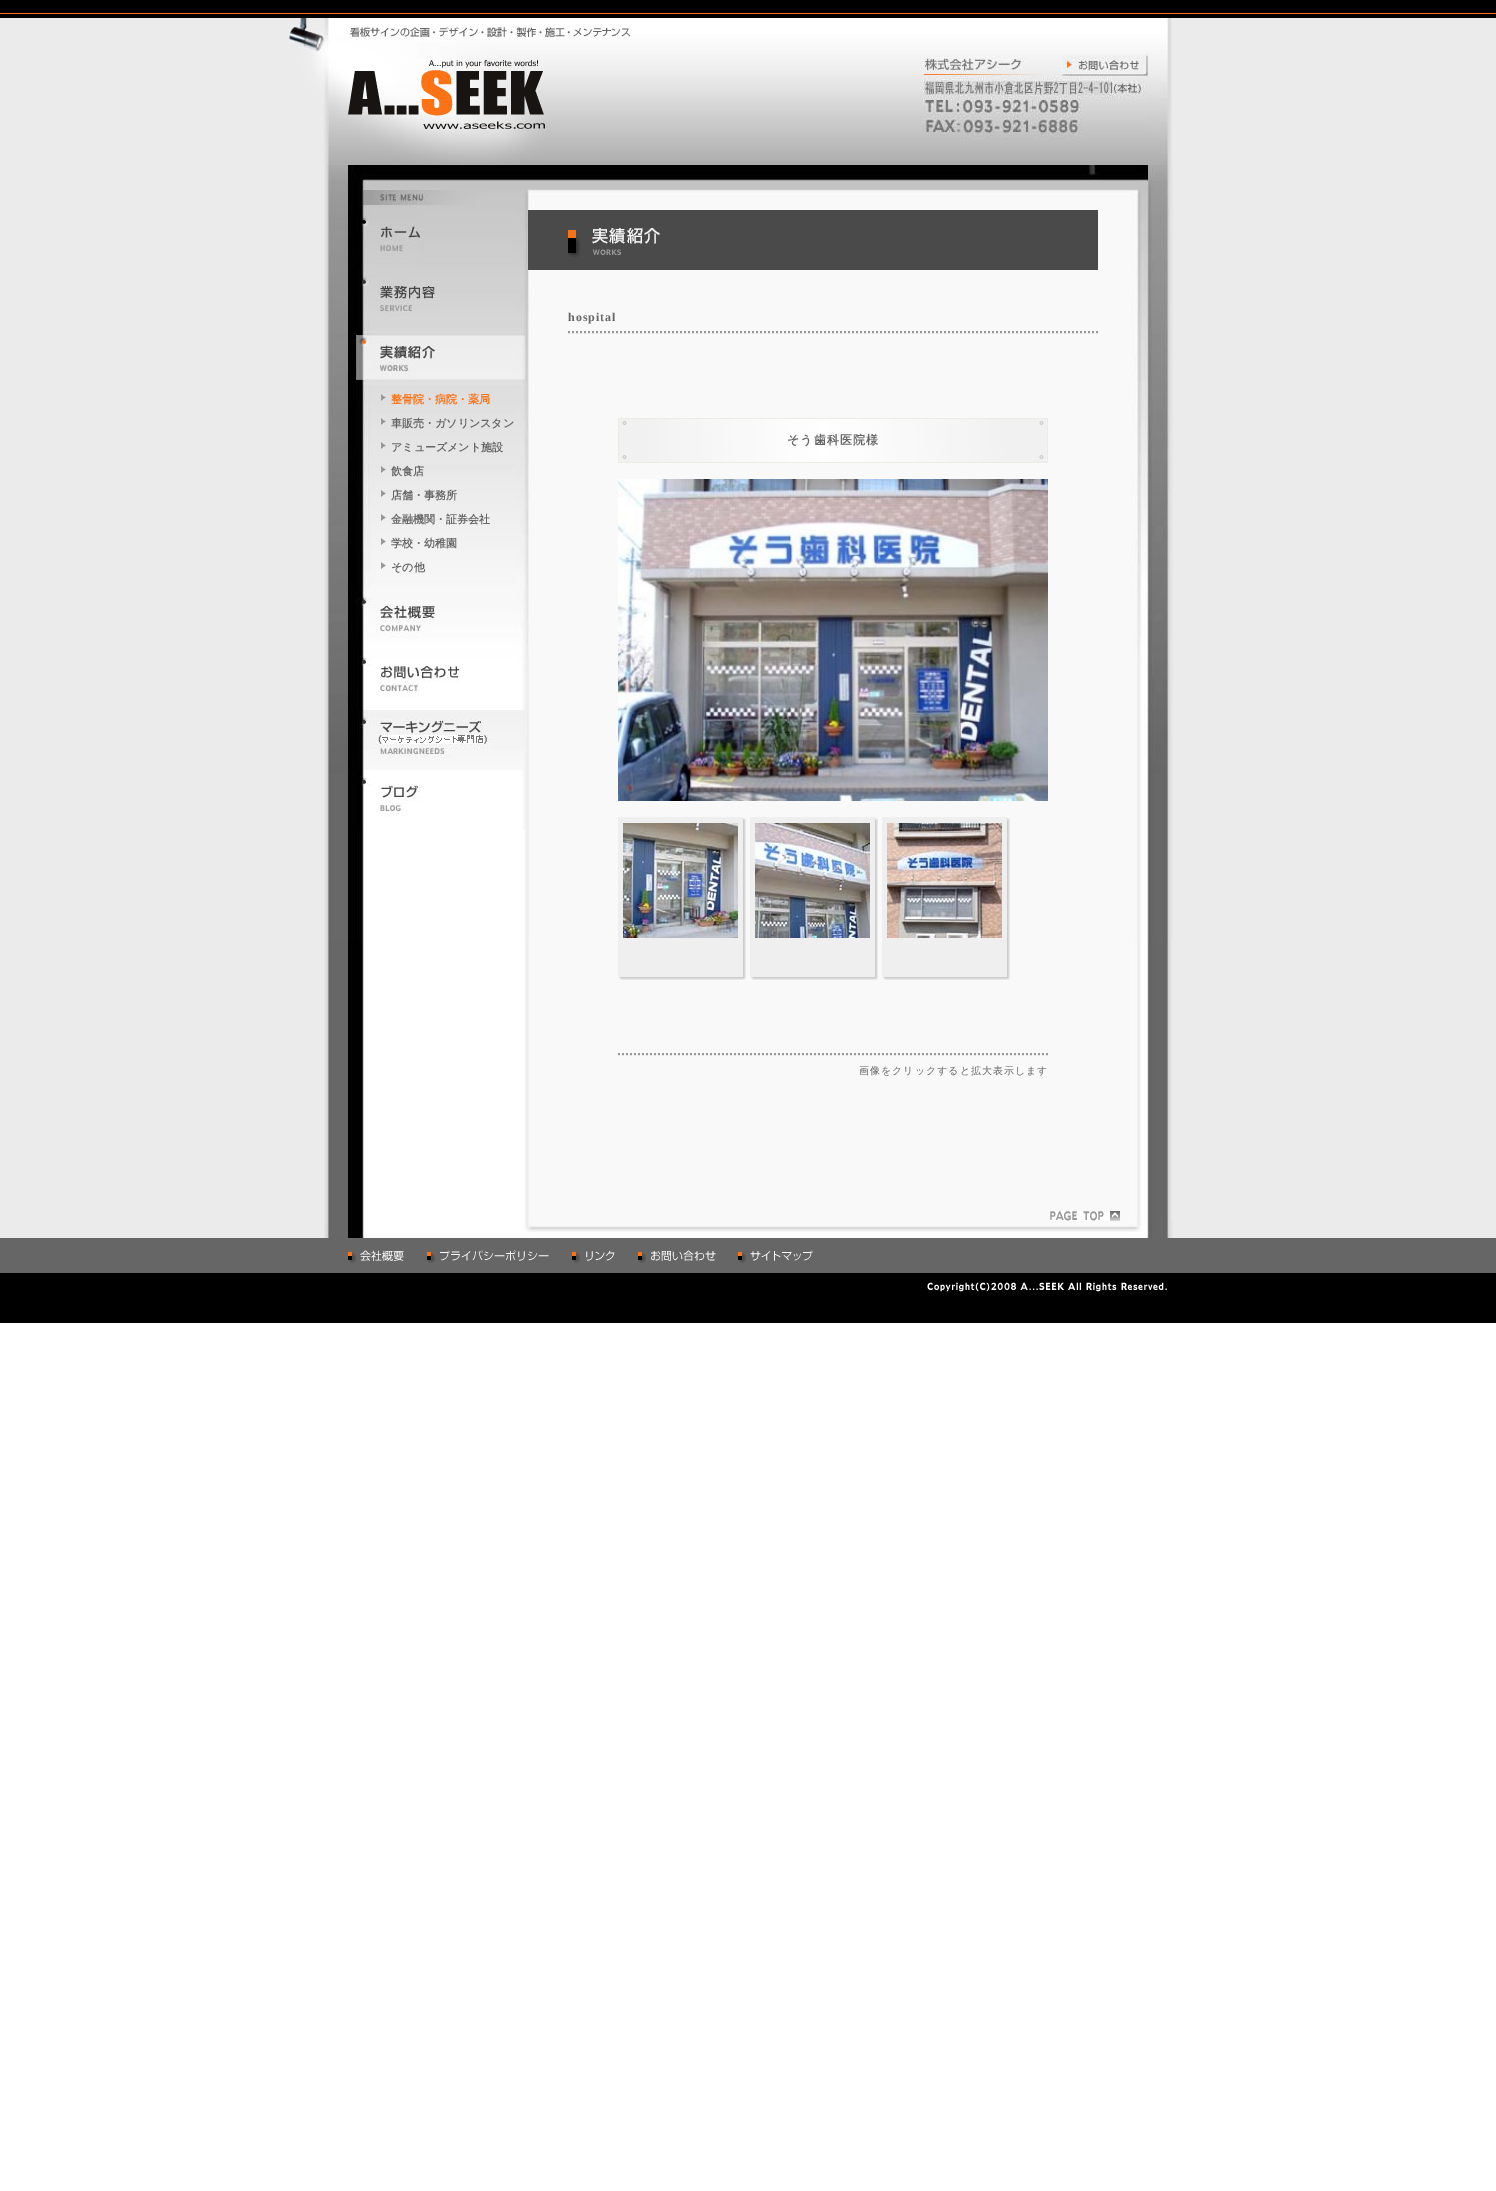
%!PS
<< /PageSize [1496 2191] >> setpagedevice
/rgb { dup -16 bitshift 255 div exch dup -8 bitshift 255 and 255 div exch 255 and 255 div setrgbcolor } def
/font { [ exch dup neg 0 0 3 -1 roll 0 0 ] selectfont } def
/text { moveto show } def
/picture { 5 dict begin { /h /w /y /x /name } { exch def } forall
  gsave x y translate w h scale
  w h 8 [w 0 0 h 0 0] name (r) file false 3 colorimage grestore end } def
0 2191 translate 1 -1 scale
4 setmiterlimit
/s1 { /WenQuanYiZenHei-Bold 11 font 16#FC7215 rgb } def
/s2 { /WenQuanYiZenHei-Bold 11 font 16#666666 rgb } def
16#FFFFFF rgb
0 0 1496 2191 rectfill
16#000000 rgb
0 0 1496 18 rectfill
16#FC7215 rgb
0 13 1496 1 rectfill
16#EBEBEB rgb
0 18 1496 1220 rectfill
(pic1.raw) 289 18 883 147 picture
(pic2.raw) 350 27 281 10 picture
(pic3.raw) 348 60 197 69 picture
(pic4.raw) 922 56 120 20 picture
(pic5.raw) 1061 54 87 22 picture
(pic6.raw) 922 76 224 64 picture
(pic7.raw) 324 165 848 1056 picture
(pic8.raw) 328 165 845 775 picture
(pic9.raw) 362 190 163 16 picture
(pic10.raw) 356 210 64 59 picture
(pic11.raw) 361 270 75 48 picture
(pic12.raw) 356 331 169 54 picture
(pic13.raw) 381 394 5 7 picture
s1
(整骨院・病院・薬局) 391 403 text
(pic14.raw) 381 418 5 7 picture
s2
(車販売・ガソリンスタン) 391 427 text
(pic15.raw) 381 442 5 7 picture
(アミューズメント施設) 391 451 text
(pic16.raw) 381 466 5 7 picture
(飲食店) 391 475 text
(pic17.raw) 381 490 5 7 picture
(店舗・事務所) 391 499 text
(pic18.raw) 381 514 5 7 picture
(金融機関・証券会社) 391 523 text
(pic19.raw) 381 538 5 7 picture
(学校・幼稚園) 391 547 text
(pic20.raw) 381 562 5 7 picture
(その他) 391 571 text
(pic21.raw) 356 590 169 60 picture
(pic22.raw) 358 650 167 60 picture
(pic23.raw) 361 710 164 60 picture
(pic24.raw) 356 770 169 60 picture
(pic25.raw) 528 210 570 60 picture
16#999999 rgb
2 setlinewidth
[2 2] 0 setdash
568 332 moveto 1098 332 lineto stroke
/LiberationSerif-Bold 12 font
16#666666 rgb
568 321 moveto 1 0 (hospital) ashow
(pic26.raw) 618 418 430 45 picture
/WenQuanYiZenHei-Bold 12 font
787 444 moveto 1 0 (そう歯科医院様) ashow
(pic27.raw) 618 479 430 322 picture
16#999999 rgb
618 1054 moveto 1048 1054 lineto stroke
(pic28.raw) 618 817 128 163 picture
(pic29.raw) 623 823 115 115 picture
(pic28.raw) 750 817 128 163 picture
(pic30.raw) 755 823 115 115 picture
(pic28.raw) 882 817 128 163 picture
(pic31.raw) 887 823 115 115 picture
/WenQuanYiZenHei-Medium 10 font
16#666666 rgb
859 1074 moveto 1 0 (画像をクリックすると拡大表示します) ashow
(pic32.raw) 1050 1211 70 10 picture
(pic33.raw) 324 1221 849 17 picture
0 1238 1496 35 rectfill
(pic34.raw) 348 1250 56 13 picture
(pic35.raw) 427 1250 122 13 picture
(pic36.raw) 572 1251 43 12 picture
(pic37.raw) 638 1250 78 13 picture
(pic38.raw) 738 1250 75 13 picture
16#000000 rgb
0 1273 1496 50 rectfill
(pic39.raw) 927 1282 240 10 picture
showpage
